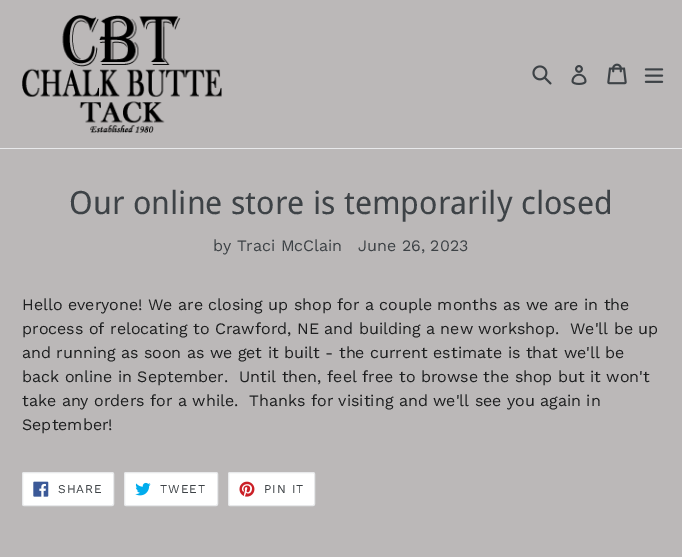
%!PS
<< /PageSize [682 557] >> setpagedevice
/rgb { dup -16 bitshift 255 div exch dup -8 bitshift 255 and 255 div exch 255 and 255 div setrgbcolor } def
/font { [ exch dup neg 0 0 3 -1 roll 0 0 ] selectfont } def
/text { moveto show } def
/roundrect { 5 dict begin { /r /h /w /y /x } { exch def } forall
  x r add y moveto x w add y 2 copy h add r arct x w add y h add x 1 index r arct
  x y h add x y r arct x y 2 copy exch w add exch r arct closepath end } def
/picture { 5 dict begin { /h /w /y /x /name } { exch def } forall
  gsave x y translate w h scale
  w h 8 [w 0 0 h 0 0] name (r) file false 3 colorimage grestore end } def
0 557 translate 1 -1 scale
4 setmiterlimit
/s1 { /DroidSans-Regular 32 font 16#3D4246 rgb } def
/s2 { /WorkSans-Regular 16 font 16#3D4246 rgb } def
/s3 { /WorkSans-Regular 16 font 16#1E1F20 rgb } def
16#BBB8B8 rgb
0 0 682 557 rectfill
16#E8E9EB rgb
0 148 682 1 rectfill
(pic1.raw) 22 15 200 118 picture
(pic2.raw) 532 65 20 20 picture
(pic3.raw) 571 65 16 20 picture
(pic4.raw) 607 63 20 22 picture
(pic5.raw) 644 68 20 15 picture
s1
(Our online store is temporarily closed) 69 214 text
s2
(by Traci McClain) 213 251 text
(June 26, 2023) 358 251 text
s3
(Hello everyone! We are closing up shop for a couple months as we are in the) 22 310 text
(process of relocating to Crawford, NE and building a new workshop.  We'll be up) 22 334 text
(and running as soon as we get it built - the current estimate is that we'll be) 22 358 text
(back online in September.  Until then, feel free to browse the shop but it won't) 22 382 text
(take any orders for a while.  Thanks for visiting and we'll see you again in) 22 406 text
(September!) 22 430 text
16#FFFFFF rgb
22.5 472.5 91 33 1.5 roundrect gsave fill grestore
16#E8E9EB rgb
stroke
(pic6.raw) 33 481 16 16 picture
/WorkSans-Regular 12 font
16#3D4246 rgb
58 493 moveto 1 0 (SHARE) ashow
16#FFFFFF rgb
124.5 472.5 93 33 1.5 roundrect gsave fill grestore
16#E8E9EB rgb
stroke
(pic7.raw) 135 482 16 14 picture
16#3D4246 rgb
160 493 moveto 1 0 (TWEET) ashow
16#FFFFFF rgb
228.5 472.5 86 33 1.5 roundrect gsave fill grestore
16#E8E9EB rgb
stroke
(pic8.raw) 239 481 16 16 picture
16#3D4246 rgb
264 493 moveto 1 0 (PIN IT) ashow
showpage
